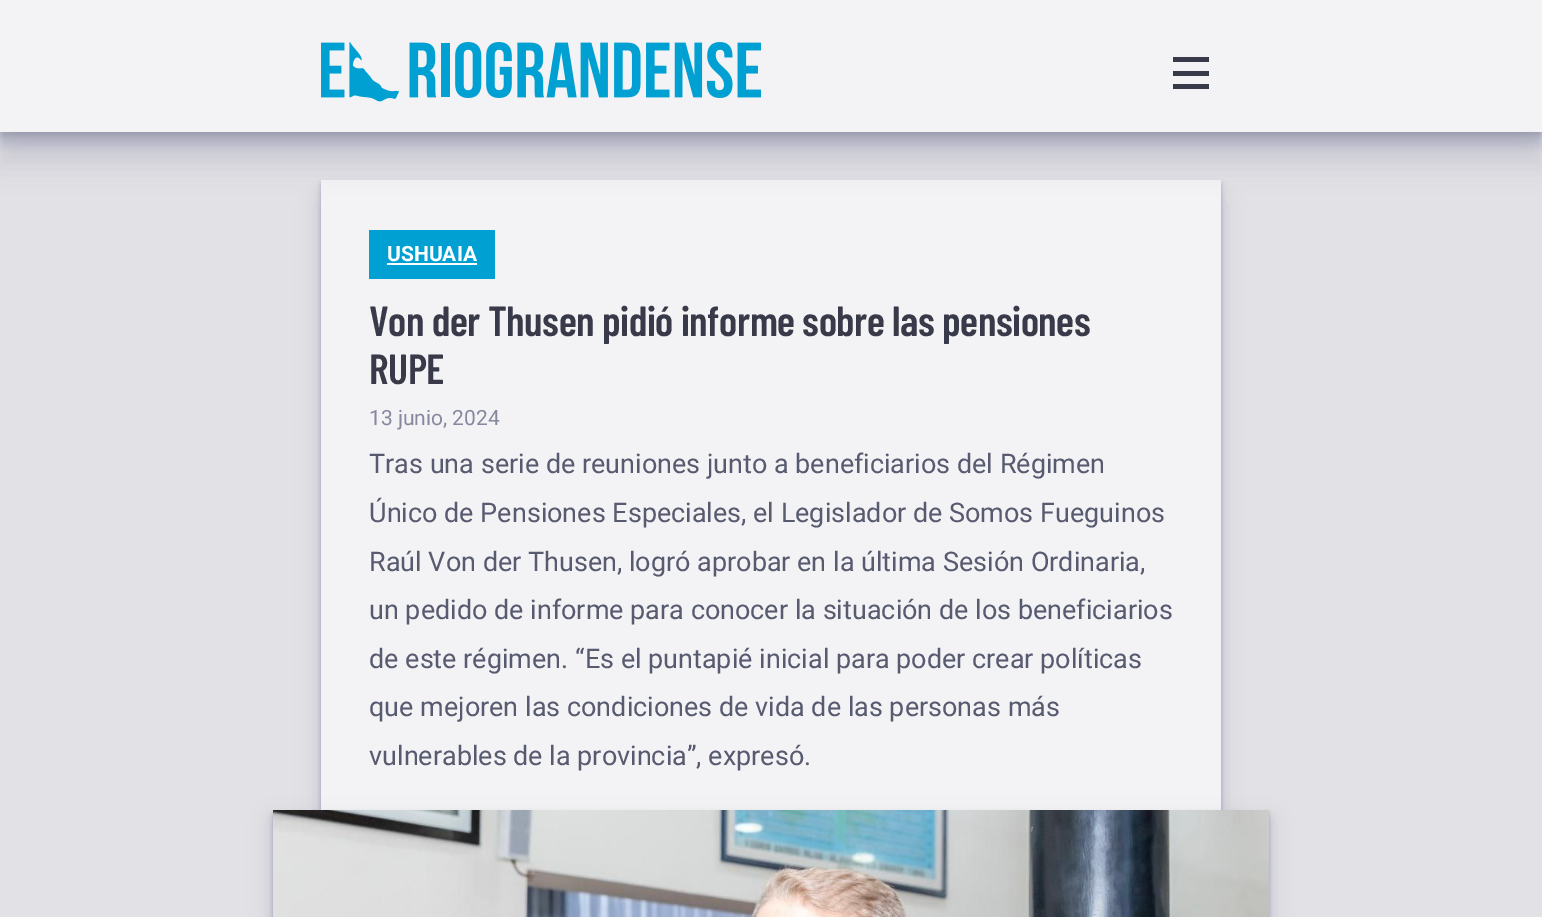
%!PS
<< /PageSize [1542 917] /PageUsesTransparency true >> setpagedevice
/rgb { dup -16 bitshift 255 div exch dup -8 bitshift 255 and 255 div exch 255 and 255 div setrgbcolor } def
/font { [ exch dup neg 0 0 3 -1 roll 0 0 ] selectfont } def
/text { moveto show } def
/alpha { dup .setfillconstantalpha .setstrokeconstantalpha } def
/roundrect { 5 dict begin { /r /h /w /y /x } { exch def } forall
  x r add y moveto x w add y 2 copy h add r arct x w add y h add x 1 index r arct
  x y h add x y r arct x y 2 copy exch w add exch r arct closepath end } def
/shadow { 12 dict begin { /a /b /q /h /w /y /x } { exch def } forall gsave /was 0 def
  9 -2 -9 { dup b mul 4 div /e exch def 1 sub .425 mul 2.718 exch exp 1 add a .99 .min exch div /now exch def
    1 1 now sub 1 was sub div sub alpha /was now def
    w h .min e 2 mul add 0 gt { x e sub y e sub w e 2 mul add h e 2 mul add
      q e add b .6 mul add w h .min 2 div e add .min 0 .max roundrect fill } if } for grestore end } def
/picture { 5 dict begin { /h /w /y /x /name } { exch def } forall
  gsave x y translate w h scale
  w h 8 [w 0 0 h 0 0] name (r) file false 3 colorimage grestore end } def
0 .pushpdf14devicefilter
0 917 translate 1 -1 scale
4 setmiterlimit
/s1 { /Roboto-Bold 21 font 16#FFFFFF rgb } def
/s2 { /Roboto-Regular 21 font 16#86889D rgb } def
/s3 { /Roboto-Regular 27 font 16#585A70 rgb } def
16#E1E1E6 rgb
0 0 1542 917 rectfill
16#36395A rgb
321 204 900 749 0 12 0.1 shadow
321 192 900 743 0 6 0.1 shadow
321 186 900 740 0 3 0.1 shadow
321 183 900 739 0 1.5 0.1 shadow
321 182 900 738 0 1 0.1 shadow
16#F3F3F5 rgb
321 180 900 630 rectfill
16#36395A rgb
0 36 1542 132 0 12 0.1 shadow
0 18 1542 132 0 6 0.1 shadow
0 12 1542 132 0 3 0.1 shadow
0 6 1542 132 0 1.5 0.1 shadow
0 3 1542 132 0 1 0.1 shadow
16#F3F3F5 rgb
0 0 1542 132 rectfill
(pic1.raw) 321 42 440 60 picture
16#393A49 rgb
1173 71 36 5 rectfill
1173 57 36 5 rectfill
1173 84 36 5 rectfill
16#00A0D2 rgb
369 230 126 49 rectfill
s1
(USHUAIA) 387 261 text
387 263 90 2 rectfill
/BarlowCondensed-SemiBold 42 font
16#393A49 rgb
369 336 moveto -0.45 0 (Von der Thusen pidió informe sobre las pensiones) ashow
369 384 moveto -0.45 0 (RUPE) ashow
s2
(13 junio, 2024) 369 425 text
s3
(Tras una serie de reuniones junto a beneficiarios del Régimen) 369 473 text
(Único de Pensiones Especiales, el Legislador de Somos Fueguinos) 369 522 text
(Raúl Von der Thusen, logró aprobar en la última Sesión Ordinaria,) 369 571 text
(un pedido de informe para conocer la situación de los beneficiarios) 369 619 text
(de este régimen. “Es el puntapié inicial para poder crear políticas) 369 668 text
(que mejoren las condiciones de vida de las personas más) 369 716 text
(vulnerables de la provincia”, expresó.) 369 765 text
16#36395A rgb
273 822 996 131 0 12 0.1 shadow
273 819 996 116 0 6 0.1 shadow
273 816 996 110 0 3 0.1 shadow
273 813 996 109 0 1.5 0.1 shadow
273 812 996 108 0 1 0.1 shadow
(pic2.raw) 273 810 996 107 picture
.poppdf14devicefilter showpage
